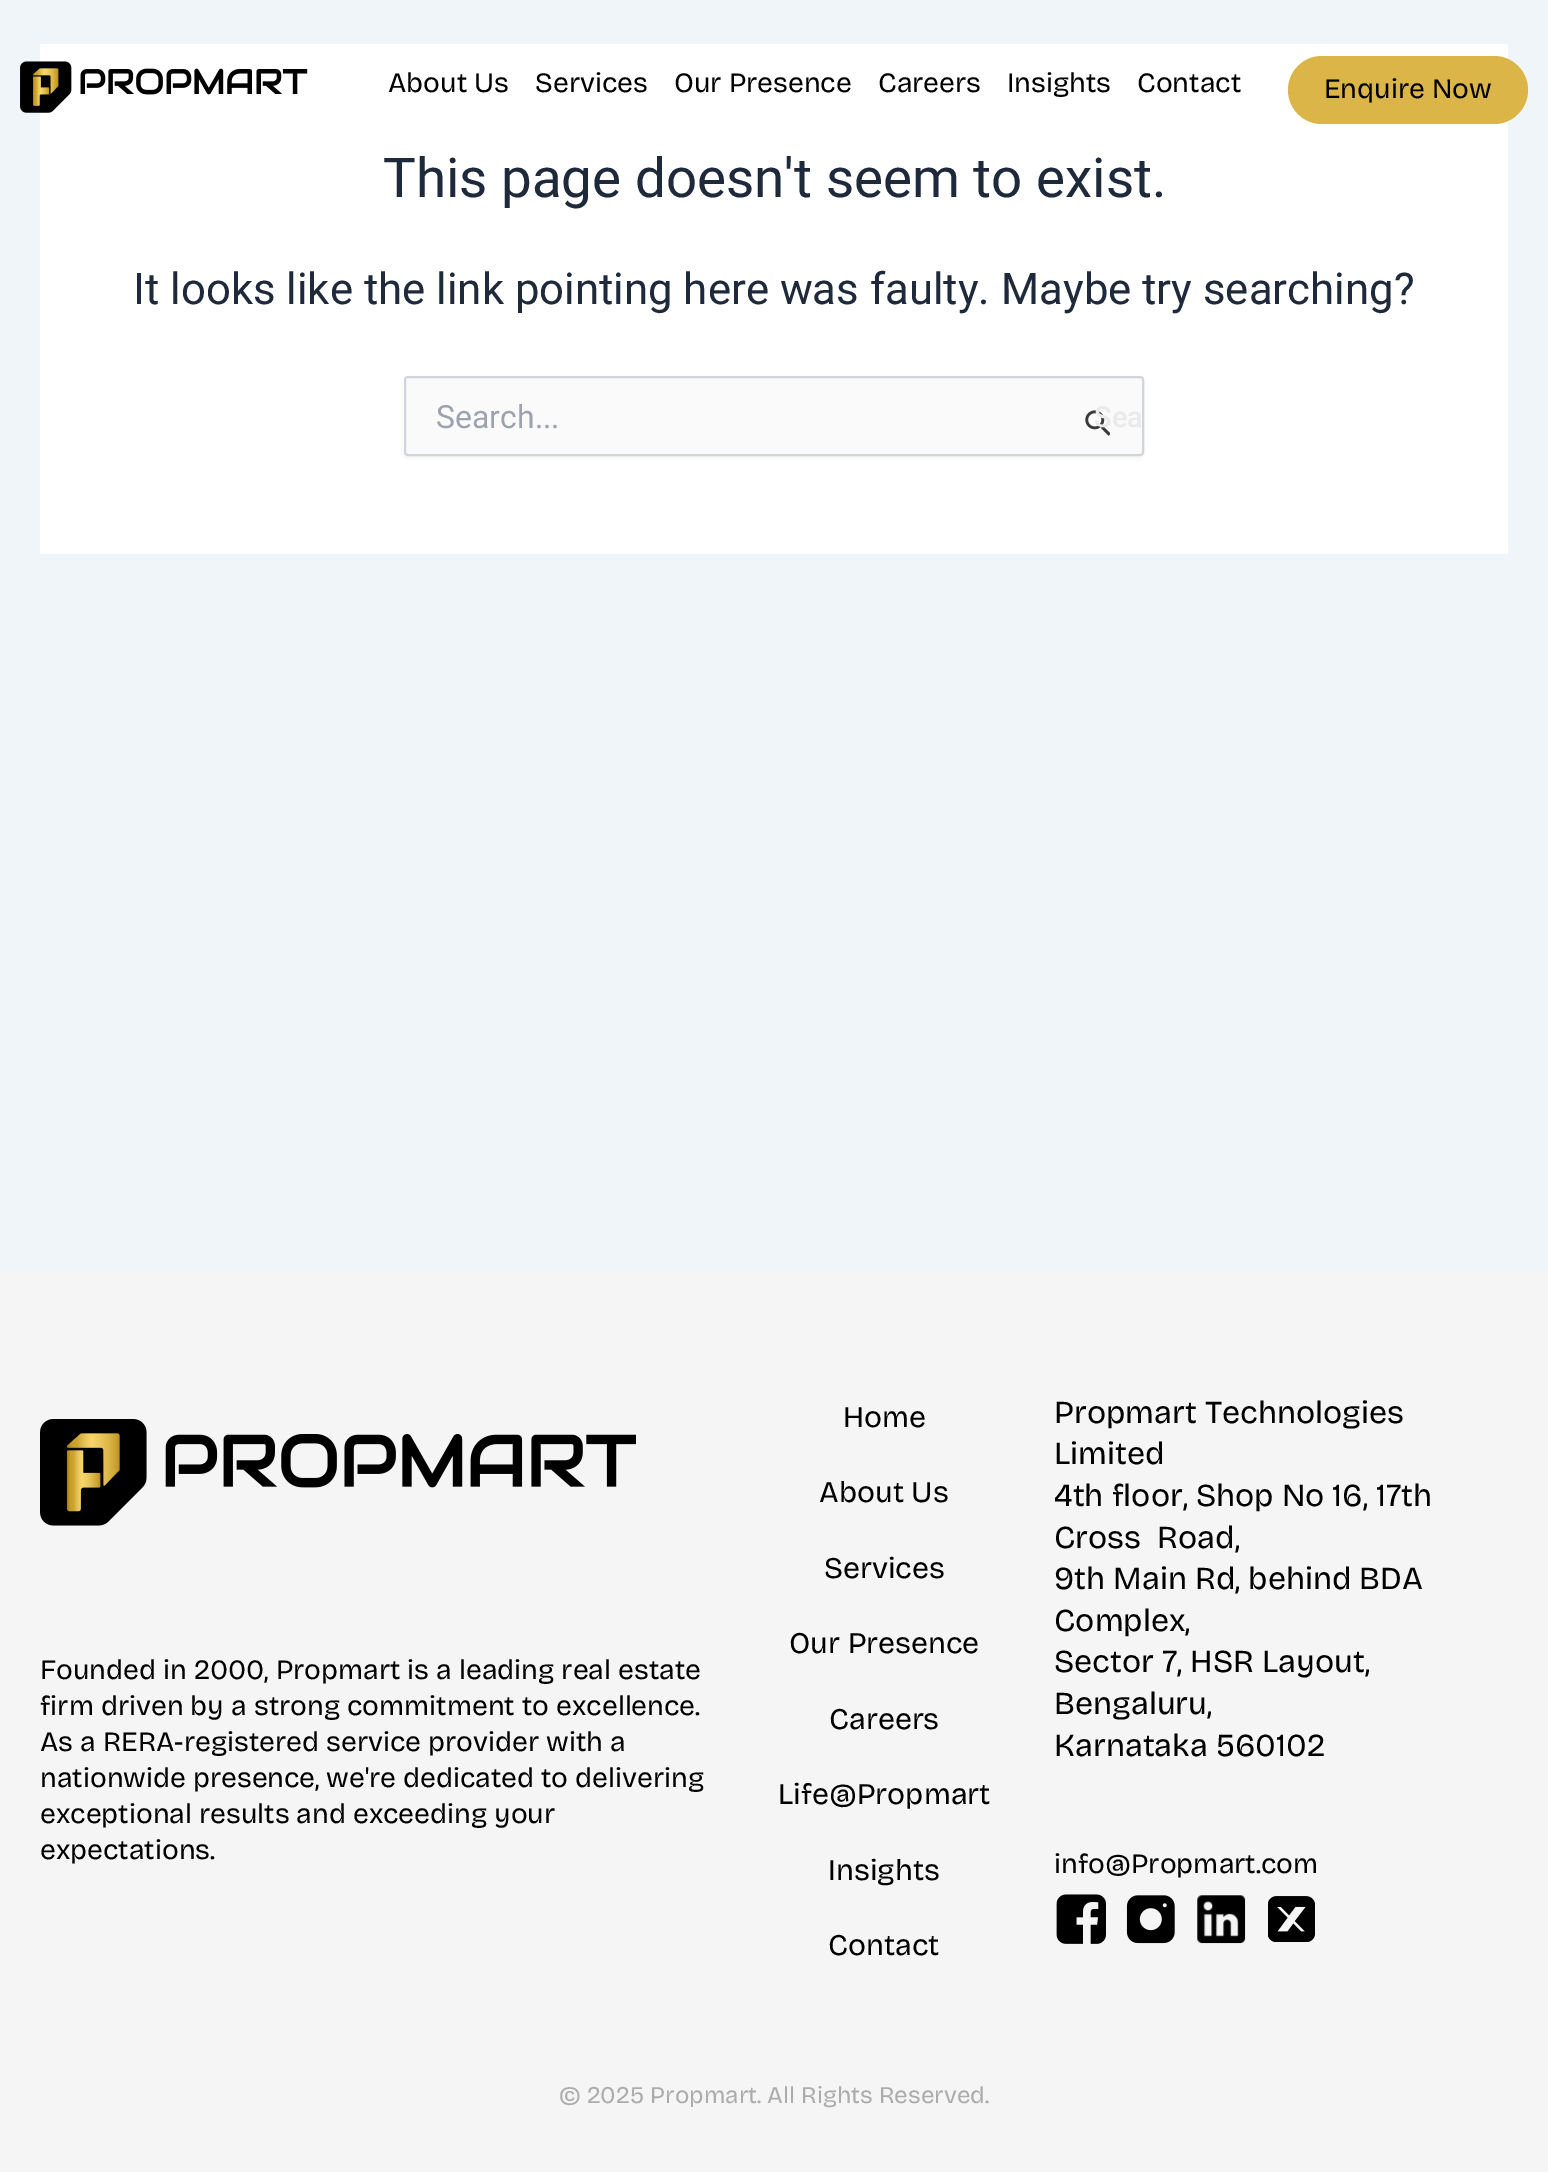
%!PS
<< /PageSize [1548 2172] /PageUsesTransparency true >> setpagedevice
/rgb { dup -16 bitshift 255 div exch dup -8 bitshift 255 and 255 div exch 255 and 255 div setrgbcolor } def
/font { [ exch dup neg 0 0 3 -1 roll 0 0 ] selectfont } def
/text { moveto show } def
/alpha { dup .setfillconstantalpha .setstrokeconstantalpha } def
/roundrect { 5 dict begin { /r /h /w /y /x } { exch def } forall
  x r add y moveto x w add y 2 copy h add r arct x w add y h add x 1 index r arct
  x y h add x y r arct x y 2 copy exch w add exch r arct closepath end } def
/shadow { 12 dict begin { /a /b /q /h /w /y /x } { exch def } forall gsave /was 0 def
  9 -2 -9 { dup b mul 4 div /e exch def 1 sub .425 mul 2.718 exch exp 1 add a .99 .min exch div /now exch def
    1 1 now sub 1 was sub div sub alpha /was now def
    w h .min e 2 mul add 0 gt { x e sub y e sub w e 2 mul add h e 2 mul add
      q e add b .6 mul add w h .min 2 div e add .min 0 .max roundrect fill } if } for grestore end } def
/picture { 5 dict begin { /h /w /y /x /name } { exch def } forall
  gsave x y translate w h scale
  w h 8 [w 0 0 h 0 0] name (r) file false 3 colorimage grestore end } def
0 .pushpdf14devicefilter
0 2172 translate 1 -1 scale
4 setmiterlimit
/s1 { /BricolageGrotesque-Regular 28 font 16#000000 rgb } def
/s2 { /Roboto-Regular 54.75 font 16#1E293B rgb } def
/s3 { /Roboto-Regular 43.75 font 16#1E293B rgb } def
/s4 { /Roboto-Regular 32 font 16#9CA3AF rgb } def
/s5 { /Roboto-Medium 29 font 16#E9E9E9 rgb } def
/s6 { /BricolageGrotesque-Regular 30 font 16#000000 rgb } def
/s7 { /BricolageGrotesque-Regular 32 font 16#000000 rgb } def
/s8 { /BricolageGrotesque-Regular 24 font 16#ABABAB rgb } def
16#F0F5FA rgb
0 0 1548 2172 rectfill
16#FFFFFF rgb
40 44 1468 510 rectfill
(pic1.raw) 20 61 288 52 picture
s1
(About Us) 388 92 text
(Services) 535 92 text
(Our Presence) 674 92 text
(Careers) 878 92 text
(Insights) 1007 92 text
(Contact) 1137 92 text
16#DBB547 rgb
1288 56 240 68 34 roundrect fill
s1
(Enquire Now) 1324 98 text
s2
(This page doesn't seem to exist.) 383 197 text
s3
(It looks like the link pointing here was faulty. Maybe try searching?) 133 304 text
16#000000 rgb
404 378 740 80 4 2 0.05 shadow
16#FAFAFA rgb
405 377 738 78 3 roundrect gsave fill grestore
16#D1D5DB rgb
2 setlinewidth
stroke
s4
(Search...) 436 428 text
(pic2.raw) 1085 410 25 26 picture
s5
(Sea) 1094 427 text
16#F5F5F5 rgb
0 1272 1548 900 rectfill
(pic3.raw) 40 1419 596 107 picture
s1
(Founded in 2000, Propmart is a leading real estate) 40 1679 text
(firm driven by a strong commitment to excellence.) 40 1715 text
(As a RERA-registered service provider with a) 40 1751 text
(nationwide presence, we're dedicated to delivering) 40 1787 text
(exceptional results and exceeding your) 40 1823 text
(expectations.) 40 1859 text
s6
(Home) 843 1427 text
(About Us) 819 1502 text
(Services) 824 1578 text
(Our Presence) 789 1653 text
(Careers) 829 1729 text
(Life@Propmart) 778 1804 text
(Insights) 828 1880 text
(Contact) 828 1955 text
s7
(Propmart Technologies) 1054 1423 text
(Limited) 1054 1464 text
(4th floor, Shop No 16, 17th) 1054 1506 text
1054 1548 moveto 8 0 32 (Cross Road,) widthshow
(9th Main Rd, behind BDA) 1054 1589 text
(Complex,) 1054 1631 text
(Sector 7, HSR Layout,) 1054 1672 text
(Bengaluru,) 1054 1714 text
(Karnataka 560102) 1054 1756 text
s1
(info@Propmart.com) 1054 1873 text
(pic4.raw) 1056 1894 50 50 picture
(pic5.raw) 1126 1895 49 49 picture
(pic6.raw) 1197 1895 49 49 picture
(pic7.raw) 1268 1896 47 46 picture
s8
(© 2025 Propmart. All Rights Reserved.) 559 2103 text
.poppdf14devicefilter showpage
